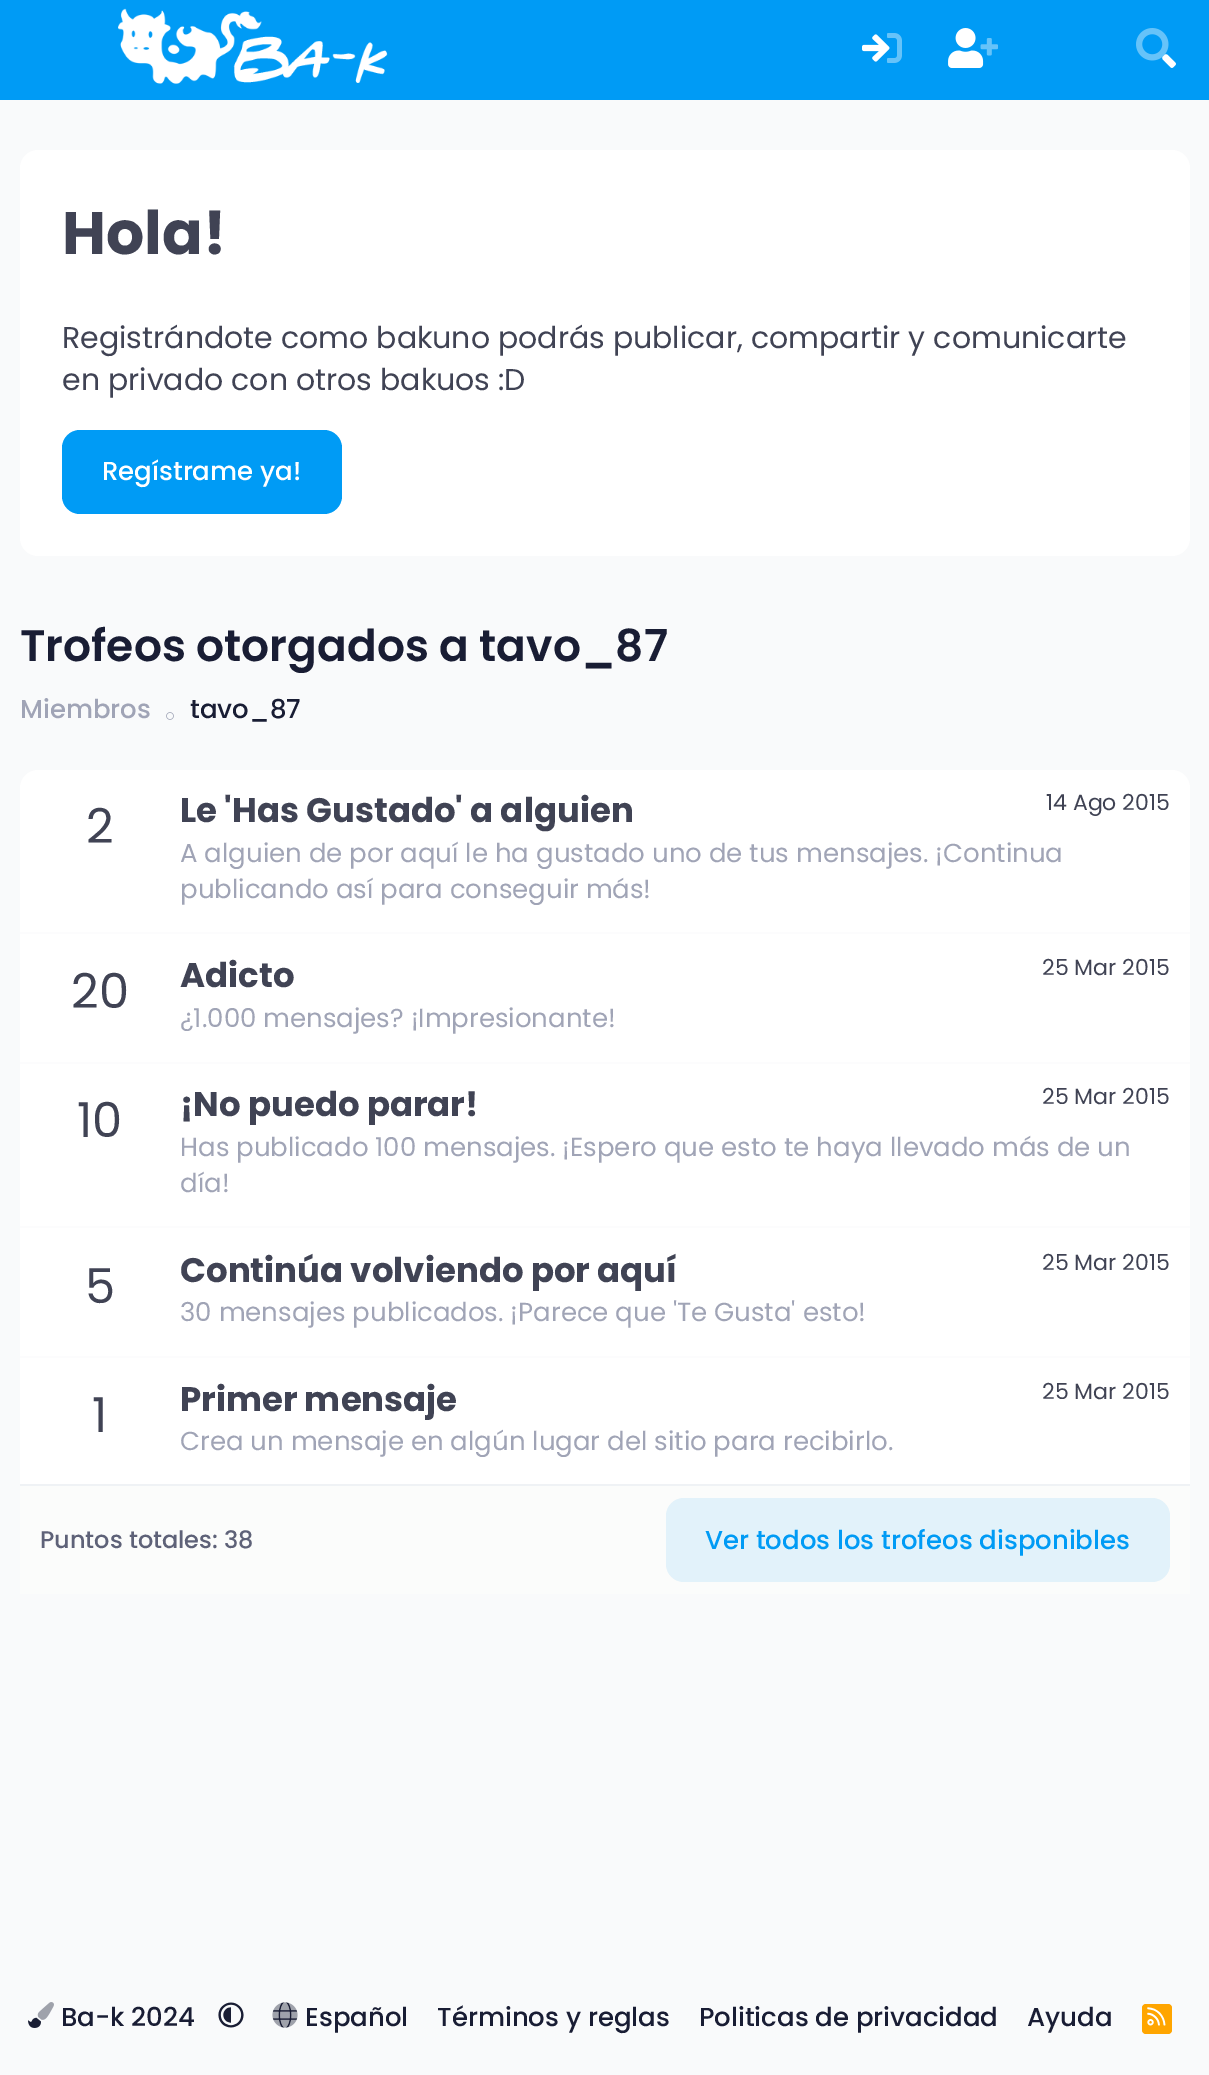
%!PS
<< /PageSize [1209 2075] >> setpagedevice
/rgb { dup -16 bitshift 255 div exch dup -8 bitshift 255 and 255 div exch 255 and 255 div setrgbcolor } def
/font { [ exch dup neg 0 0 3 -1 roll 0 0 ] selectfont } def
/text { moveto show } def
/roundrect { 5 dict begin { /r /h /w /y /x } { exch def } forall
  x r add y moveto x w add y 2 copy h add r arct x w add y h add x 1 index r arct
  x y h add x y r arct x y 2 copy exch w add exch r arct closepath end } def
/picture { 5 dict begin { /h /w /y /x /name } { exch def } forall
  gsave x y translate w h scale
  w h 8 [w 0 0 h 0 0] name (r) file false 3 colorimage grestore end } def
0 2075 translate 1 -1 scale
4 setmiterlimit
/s1 { /Poppins-Bold 60 font 16#404354 rgb } def
/s2 { /Poppins-Regular 30 font 16#404354 rgb } def
/s3 { /Poppins-Medium 26 font 16#FFFFFF rgb } def
/s4 { /Poppins-SemiBold 44 font 16#191D34 rgb } def
/s5 { /Poppins-Medium 26 font 16#A0A4B6 rgb } def
/s6 { /Poppins-Medium 26 font 16#191D34 rgb } def
/s7 { /Poppins-Regular 48 font 16#404354 rgb } def
/s8 { /Poppins-Bold 34 font 16#404354 rgb } def
/s9 { /Poppins-Regular 22 font 16#404354 rgb } def
/s10 { /Poppins-Regular 26 font 16#A0A4B6 rgb } def
/s11 { /Poppins-Medium 24 font 16#5E6278 rgb } def
/s12 { /Poppins-Medium 26 font 16#009BF5 rgb } def
16#F9FAFB rgb
0 0 1209 2075 rectfill
16#009BF5 rgb
0 0 1209 100 rectfill
(pic1.raw) 118 8 270 76 picture
(pic2.raw) 862 33 40 30 picture
(pic3.raw) 948 28 50 40 picture
(pic4.raw) 1136 28 40 40 picture
16#FFFFFF rgb
20 150 1170 406 18 roundrect fill
s1
(Hola!) 62 254 text
s2
(Registrándote como bakuno podrás publicar, compartir y comunicarte) 62 348 text
(en privado con otros bakuos :D) 62 390 text
16#009BF5 rgb
62 430 280 84 18 roundrect fill
s3
(Regístrame ya!) 102 480 text
s4
(Trofeos otorgados a tavo_87) 20 661 text
s5
(Miembros) 20 718 text
(pic5.raw) 166 712 8 8 picture
s6
(tavo_87) 190 718 text
16#FFFFFF rgb
20 770 1170 824 18 roundrect fill
s7
(2) 86 843 text
s8
(Le 'Has Gustado' a alguien) 180 822 text
s9
(14 Ago 2015) 1046 810 text
s10
(A alguien de por aquí le ha gustado uno de tus mensajes. ¡Continua) 180 862 text
(publicando así para conseguir más!) 180 898 text
16#FCFCFD rgb
20 932 1170 2 rectfill
s7
(20) 71 1008 text
s8
(Adicto) 180 987 text
s9
(25 Mar 2015) 1042 975 text
s10
(¿1.000 mensajes? ¡Impresionante!) 180 1027 text
16#FCFCFD rgb
20 1062 1170 2 rectfill
s7
(10) 77 1137 text
s8
(¡No puedo parar!) 180 1116 text
s9
(25 Mar 2015) 1042 1104 text
s10
(Has publicado 100 mensajes. ¡Espero que esto te haya llevado más de un) 180 1156 text
(día!) 180 1192 text
16#FCFCFD rgb
20 1226 1170 2 rectfill
s7
(5) 85 1303 text
s8
(Continúa volviendo por aquí) 180 1282 text
s9
(25 Mar 2015) 1042 1270 text
s10
(30 mensajes publicados. ¡Parece que 'Te Gusta' esto!) 180 1321 text
16#FCFCFD rgb
20 1356 1170 2 rectfill
s7
(1) 92 1432 text
s8
(Primer mensaje) 180 1411 text
s9
(25 Mar 2015) 1042 1399 text
s10
(Crea un mensaje en algún lugar del sitio para recibirlo.) 180 1450 text
16#FBFCFB rgb
20 1486 1170 108 rectfill
16#EFF2F5 rgb
20 1484 1170 2 rectfill
s11
(Puntos totales: 38) 40 1548 text
16#E2F2FA rgb
666 1498 504 84 18 roundrect fill
s12
(Ver todos los trofeos disponibles) 705 1549 text
(pic6.raw) 28 2002 26 26 picture
s6
(Ba-k 2024) 61 2026 text
(pic7.raw) 218 2002 26 26 picture
(pic8.raw) 272 2002 26 26 picture
(Español) 305 2026 text
(Términos y reglas) 437 2026 text
(Politicas de privacidad) 699 2026 text
(Ayuda) 1027 2026 text
16#FFA500 rgb
1142 2004 30 30 4 roundrect fill
(pic9.raw) 1147 2007 19 19 picture
showpage
